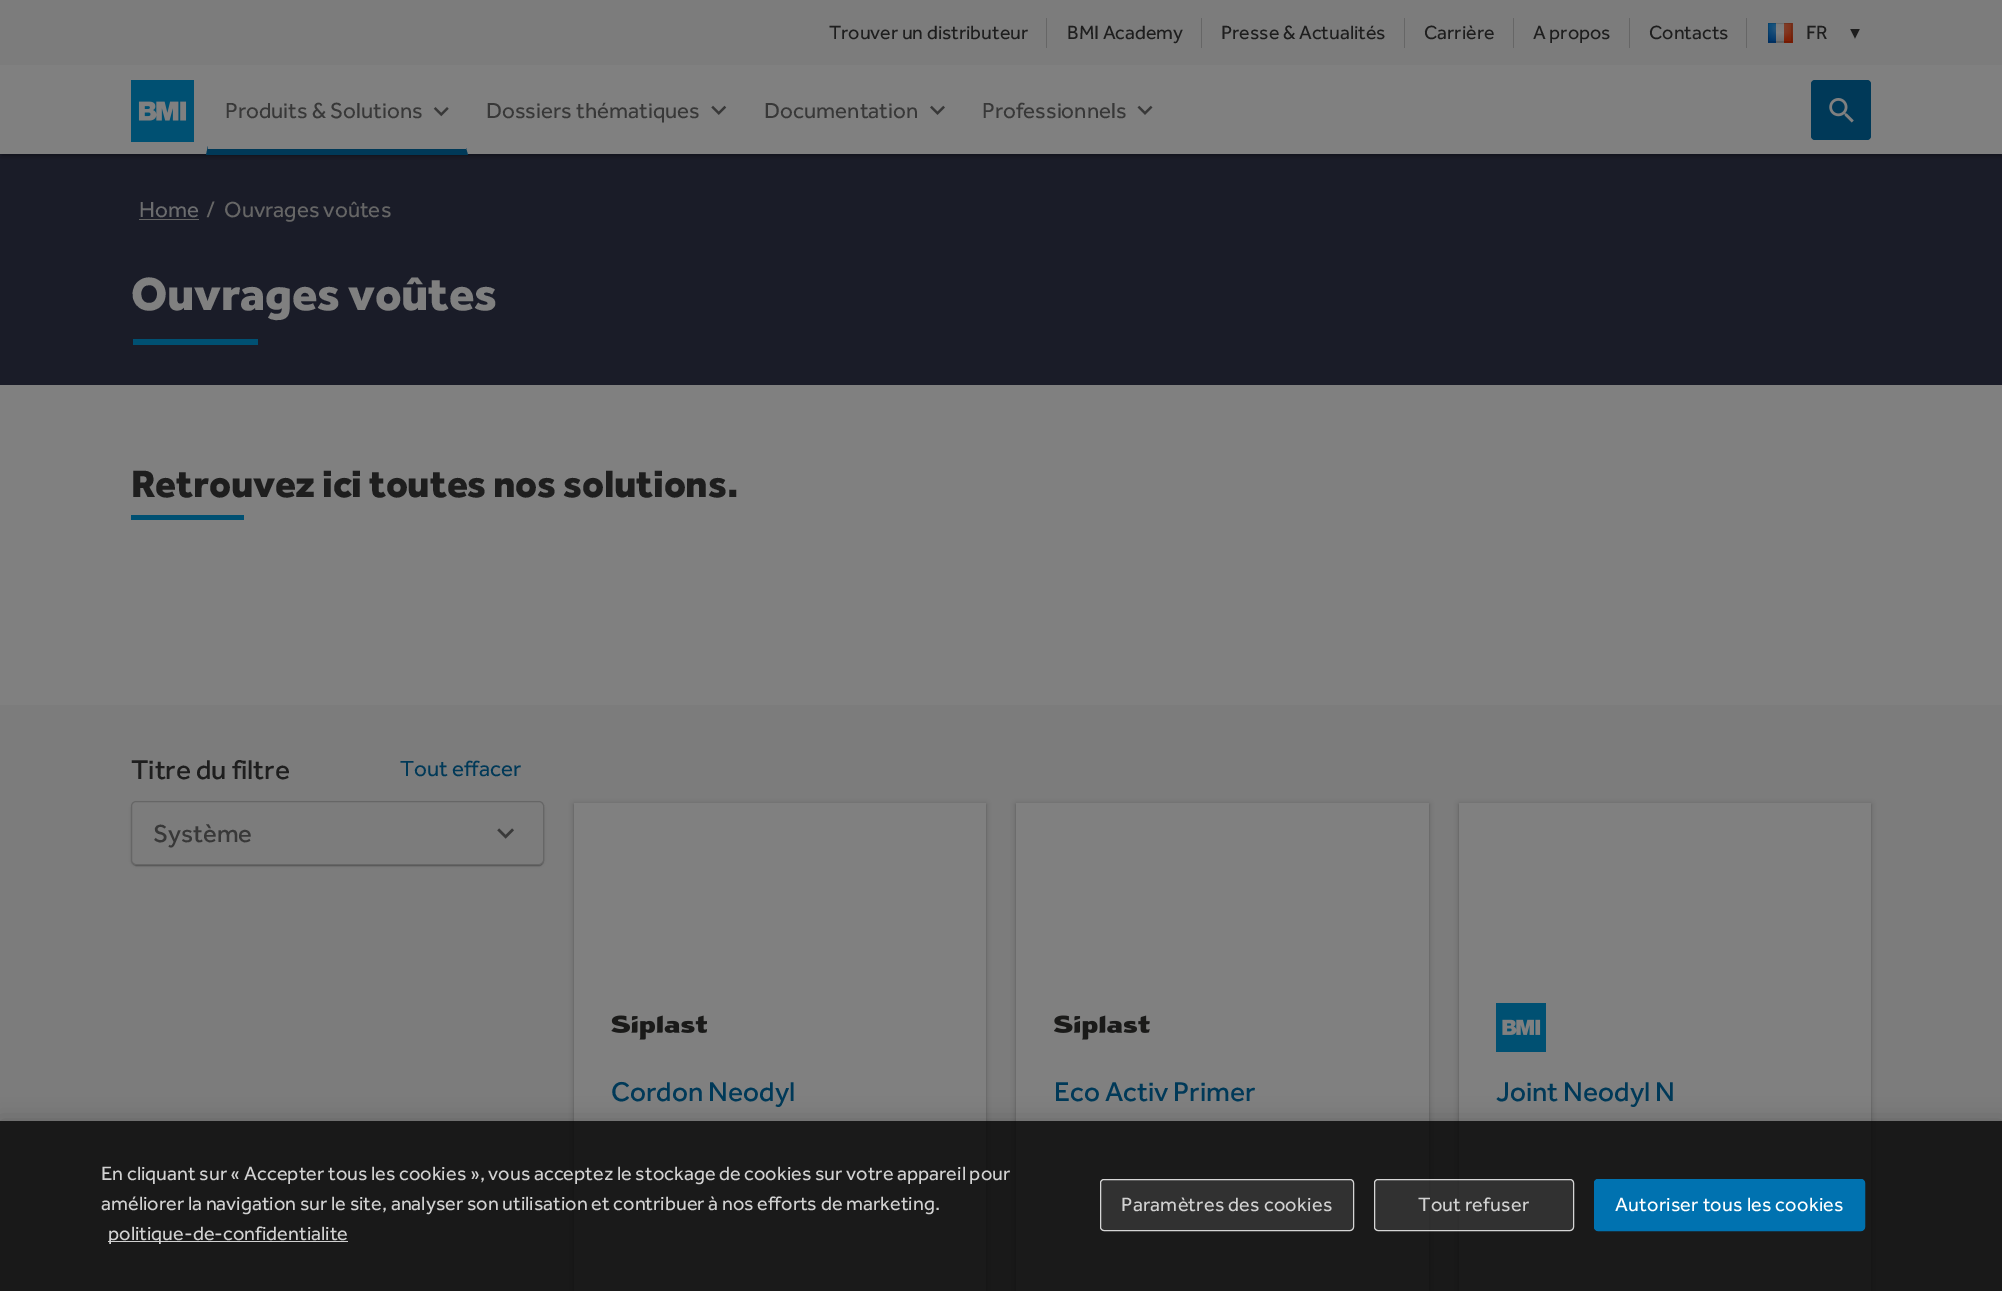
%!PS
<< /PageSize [2002 1291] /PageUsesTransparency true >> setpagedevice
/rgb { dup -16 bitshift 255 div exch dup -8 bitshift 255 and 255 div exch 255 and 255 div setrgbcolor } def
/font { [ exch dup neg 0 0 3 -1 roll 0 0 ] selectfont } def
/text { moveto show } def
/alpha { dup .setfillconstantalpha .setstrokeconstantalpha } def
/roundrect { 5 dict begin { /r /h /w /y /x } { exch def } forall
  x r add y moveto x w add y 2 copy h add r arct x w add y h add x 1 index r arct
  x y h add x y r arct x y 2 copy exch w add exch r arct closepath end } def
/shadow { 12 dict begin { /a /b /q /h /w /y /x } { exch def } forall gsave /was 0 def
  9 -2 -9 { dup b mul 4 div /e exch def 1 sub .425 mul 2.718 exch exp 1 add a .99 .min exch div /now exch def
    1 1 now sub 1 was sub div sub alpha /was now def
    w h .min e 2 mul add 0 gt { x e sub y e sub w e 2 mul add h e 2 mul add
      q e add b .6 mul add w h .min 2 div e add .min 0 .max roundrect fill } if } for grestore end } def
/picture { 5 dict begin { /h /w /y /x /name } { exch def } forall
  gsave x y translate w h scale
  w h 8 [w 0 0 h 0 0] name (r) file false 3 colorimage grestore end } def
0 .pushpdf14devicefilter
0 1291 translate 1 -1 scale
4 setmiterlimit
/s1 { /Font-Regular 19.75 font 16#1E1E1E rgb } def
/s2 { /DejaVuSans-Regular 19.75 font 16#1E1E1E rgb } def
/s3 { /Font-Regular 22.5 font 16#383838 rgb } def
/s4 { /Font-Regular 22.5 font 16#6B6C6E rgb } def
/s5 { /Font-Regular 22.5 font 16#666666 rgb } def
/s6 { /Font-Medium 28 font 16#1E1E1E rgb } def
/s7 { /Font-Regular 22.5 font 16#003958 rgb } def
/s8 { /Font-Medium 25.5 font 16#383838 rgb } def
/s9 { /Font-Medium 28 font 16#003958 rgb } def
/s10 { /Font-Regular 20 font 16#D1D1D1 rgb } def
16#808080 rgb
0 0 2002 1291 rectfill
16#1A1C28 rgb
0 154 2002 231 rectfill
16#000000 rgb
0 1 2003 154 0 5 0.12 shadow
0 4 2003 154 0 2.5 0.14 shadow
3 6 1997 149 0 2 0.2 shadow
16#808080 rgb
0 65 2002 89 rectfill
16#7C7C7C rgb
0 0 2002 65 rectfill
s1
(Trouver un distributeur) 829 39 text
16#666666 rgb
1046 18 1 30 rectfill
s1
(BMI Academy) 1067 39 text
16#666666 rgb
1201 18 1 30 rectfill
s1
(Presse & Actualités) 1221 39 text
16#666666 rgb
1404 18 1 30 rectfill
s1
(Carrière) 1424 39 text
16#666666 rgb
1513 18 1 30 rectfill
s1
(A propos) 1533 39 text
16#666666 rgb
1629 18 1 30 rectfill
s1
(Contacts) 1649 39 text
16#666666 rgb
1746 18 1 30 rectfill
(pic1.raw) 1768 23 25 20 picture
s1
(FR) 1806 39 text
s2
(▾) 1850 39 text
(pic2.raw) 131 80 63 62 picture
16#003958 rgb
468 155 moveto 466 148 lineto 466 149 lineto 208 149 lineto 208 146 lineto 206 155 lineto closepath fill
s3
(Produits & Solutions) 225 118 text
(pic3.raw) 433 107 16 10 picture
(Dossiers thématiques) 486 118 text
(pic4.raw) 711 105 16 10 picture
(Documentation) 764 118 text
(pic5.raw) 930 105 15 10 picture
(Professionnels) 982 118 text
(pic6.raw) 1137 105 16 10 picture
16#003958 rgb
1811 80 60 60 4 roundrect fill
(pic7.raw) 1829 98 25 25 picture
s4
(Home) 139 217 text
16#666666 rgb
139 219 60 1 rectfill
(/) 206 217 text
(Ouvrages voûtes) 224 217 text
/Font-Black 47.75 font
16#808080 rgb
131 310 moveto -0.25 0 (Ouvrages voûtes) ashow
16#005072 rgb
133 339 125 6 rectfill
/Font-Black 39.4 font
16#1E1E1E rgb
131 497 moveto -0.25 0 (Retrouvez ici toutes nos solutions.) ashow
16#005072 rgb
131 515 113 5 rectfill
16#7C7C7C rgb
0 705 2002 586 rectfill
s6
(Titre du filtre) 131 779 text
s7
(Tout effacer) 400 776 text
16#000000 rgb
131 803 413 63 5 2 0.12 shadow
131 803 413 63 5 0.5 0.14 shadow
133 805 410 61 4 0.5 0.2 shadow
16#7C7C7C rgb
131.5 801.5 412 63 4.5 roundrect gsave fill grestore
16#666666 rgb
stroke
s8
(Système) 153 842 text
(pic8.raw) 497 828 17 11 picture
16#000000 rgb
574 805 412 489 0 1 0.14 shadow
574 804 412 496 0 3 0.2 shadow
16#808080 rgb
574 803 412 488 rectfill
(pic9.raw) 611 1015 96 25 picture
s9
(Cordon Neodyl) 611 1101 text
16#000000 rgb
1016 805 413 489 0 1 0.14 shadow
1016 804 413 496 0 3 0.2 shadow
16#808080 rgb
1016 803 413 488 rectfill
(pic10.raw) 1054 1015 96 25 picture
s9
(Eco Activ Primer) 1054 1101 text
16#000000 rgb
1459 805 412 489 0 1 0.14 shadow
1459 804 412 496 0 3 0.2 shadow
16#808080 rgb
1459 803 412 488 rectfill
(pic11.raw) 1496 1003 50 49 picture
s9
(Joint Neodyl N) 1496 1101 text
gsave
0 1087 moveto 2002 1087 lineto 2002 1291 lineto 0 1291 lineto closepath 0 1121 moveto 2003 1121 lineto 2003 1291 lineto 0 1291 lineto closepath eoclip newpath
16#000000 rgb
0 1121 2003 170 0 11 0.2 shadow
grestore
0.8 alpha
16#000000 rgb
0 1121 2002 170 rectfill
1 alpha
s10
(En cliquant sur « Accepter tous les cookies », vous acceptez le stockage de cookies sur votre appareil pour) 101 1180 text
(améliorer la navigation sur le site, analyser son utilisation et contribuer à nos efforts de marketing.) 101 1210 text
108 1241 240 1 rectfill
(politique-de-confidentialite) 108 1240 text
0.1 alpha
16#FFFFFF rgb
1100 1179 254 52 4 roundrect fill
0.8 alpha
1100.5 1179.5 253 51 3.5 roundrect stroke
1 alpha
16#D1D1D1 rgb
1121 1211 moveto 0.2 0 (Paramètres des cookies) ashow
0.1 alpha
16#FFFFFF rgb
1374 1179 200 52 4 roundrect fill
0.8 alpha
1374.5 1179.5 199 51 3.5 roundrect stroke
1 alpha
16#D1D1D1 rgb
1418 1211 moveto 0.2 0 (Tout refuser) ashow
16#0072B0 rgb
1594.5 1179.5 270 51 3.5 roundrect gsave fill grestore
stroke
16#FFFFFF rgb
1615 1211 moveto 0.2 0 (Autoriser tous les cookies) ashow
.poppdf14devicefilter showpage
